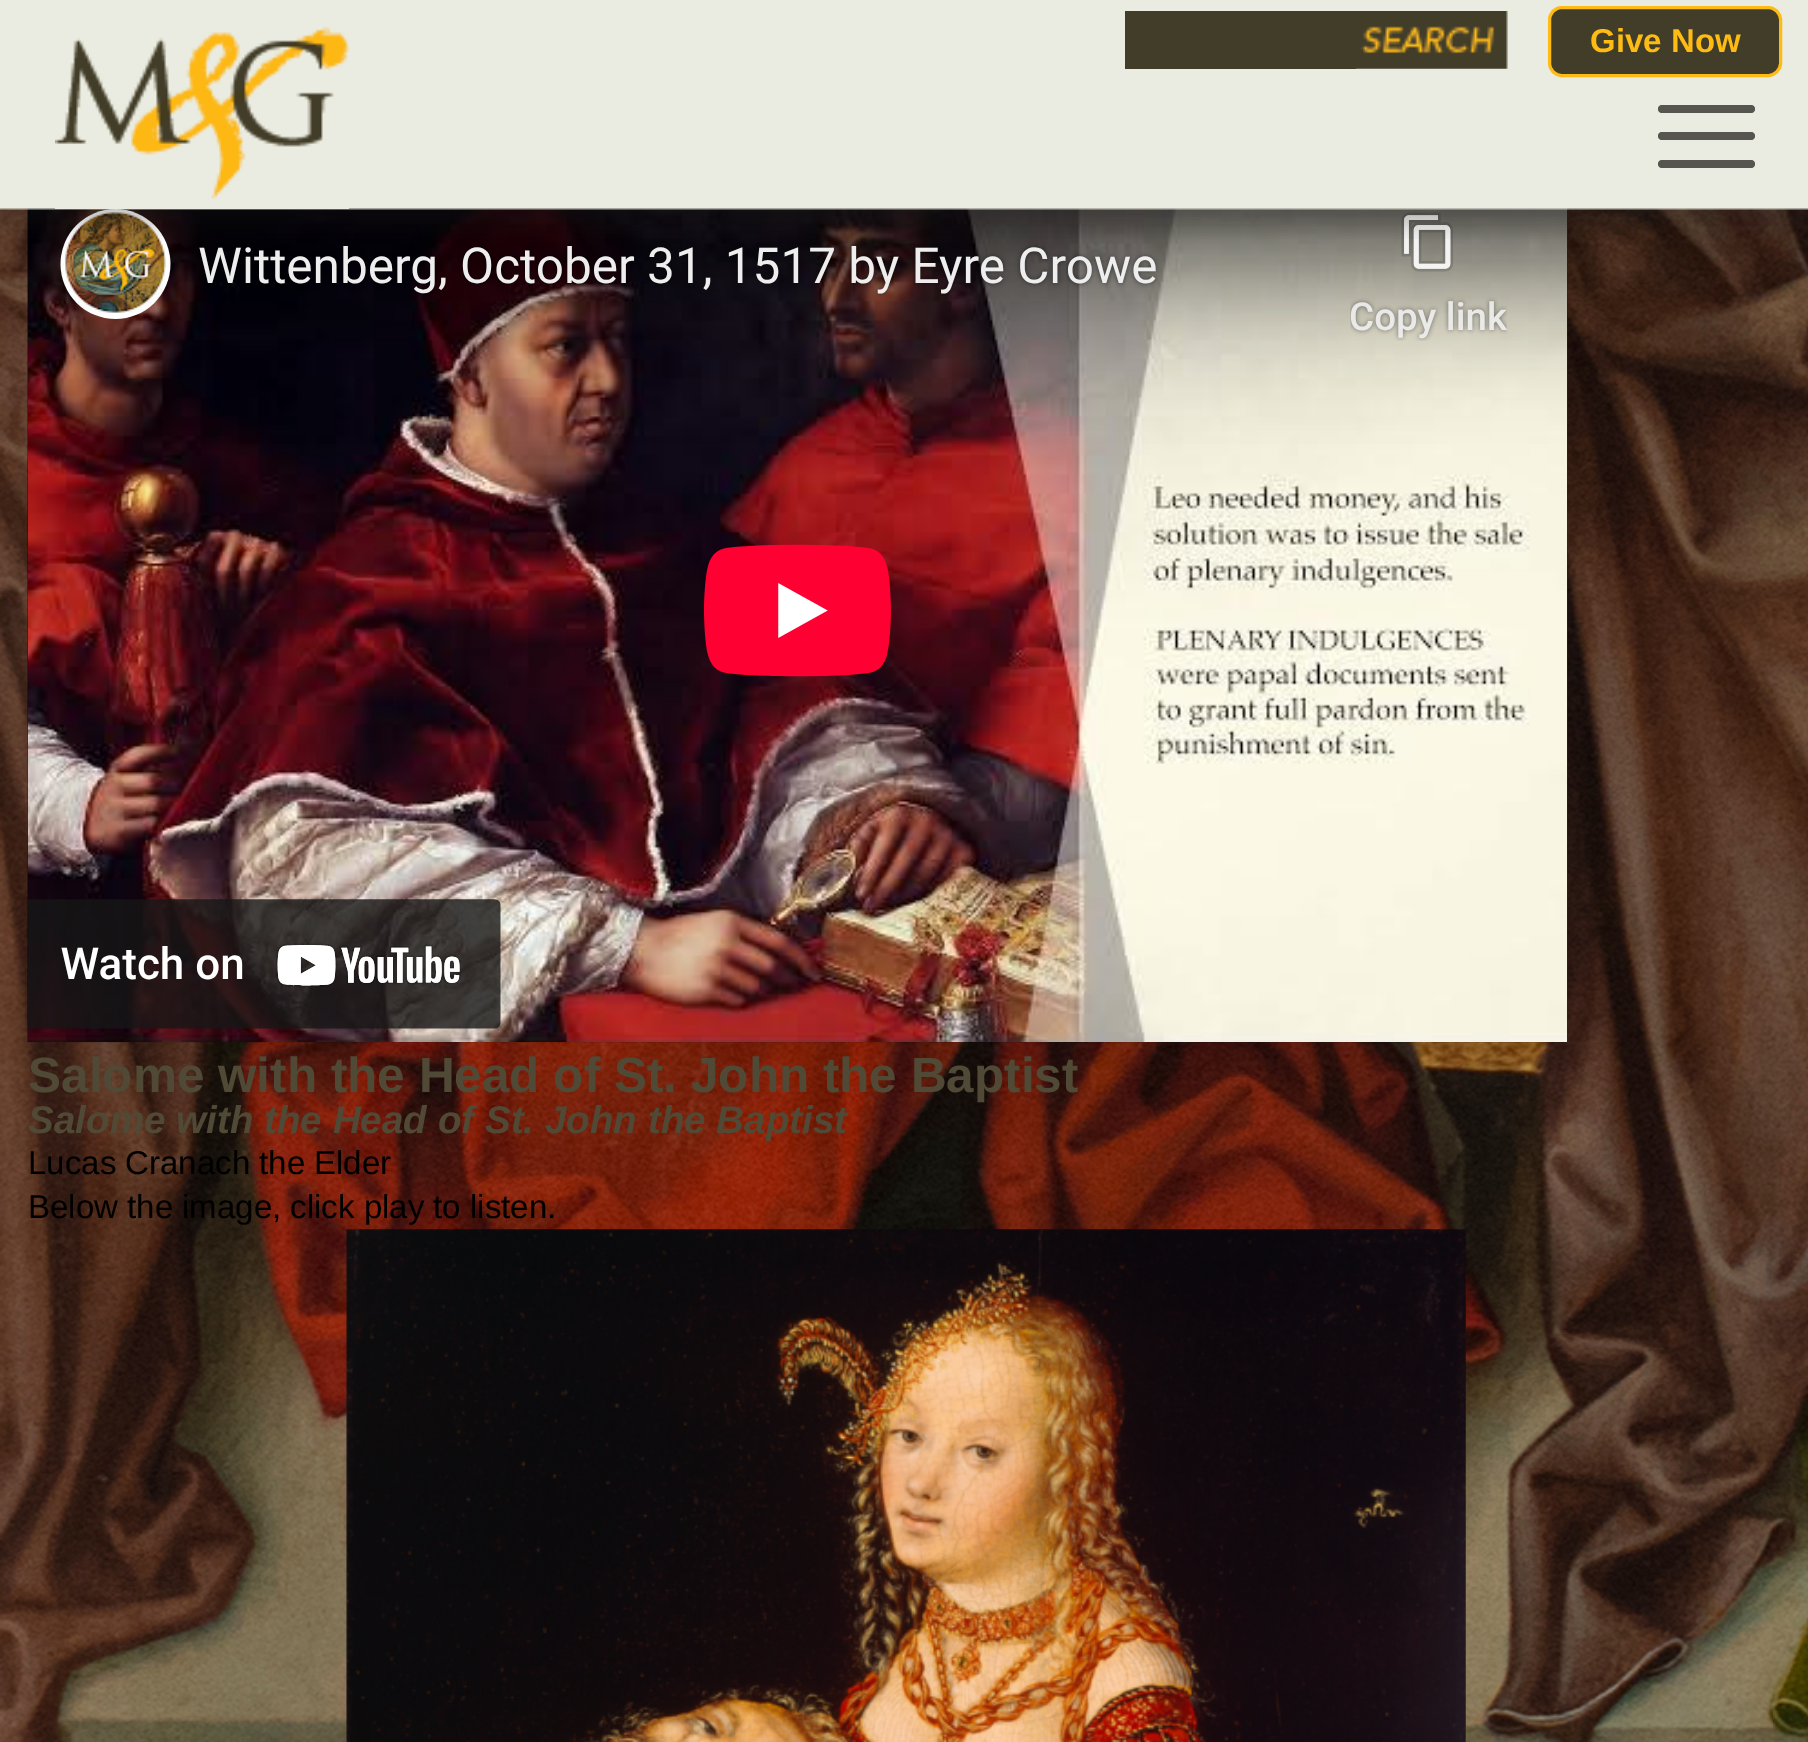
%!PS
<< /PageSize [1808 1742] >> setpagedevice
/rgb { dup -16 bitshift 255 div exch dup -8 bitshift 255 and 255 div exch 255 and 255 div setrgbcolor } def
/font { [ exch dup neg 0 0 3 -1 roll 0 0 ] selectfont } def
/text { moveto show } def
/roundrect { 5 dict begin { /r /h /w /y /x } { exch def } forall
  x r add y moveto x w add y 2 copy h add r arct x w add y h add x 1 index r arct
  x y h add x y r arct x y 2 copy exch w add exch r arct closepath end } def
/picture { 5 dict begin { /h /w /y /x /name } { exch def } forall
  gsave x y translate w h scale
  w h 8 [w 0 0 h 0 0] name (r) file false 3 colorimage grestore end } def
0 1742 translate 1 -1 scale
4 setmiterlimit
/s1 { /LiberationSans-Bold 33 font 16#FDBB13 rgb } def
/s2 { /LiberationSans-Bold 49.5 font 16#4F4935 rgb } def
/s3 { /LiberationSans-BoldItalic 38.6 font 16#4F4935 rgb } def
/s4 { /LiberationSans-Regular 33 font 16#000000 rgb } def
16#FFFFFF rgb
0 0 1808 1742 rectfill
(pic4.raw) 0 208 1808 1534 picture
(pic5.raw) 27 208 1541 835 picture
(pic1.raw) 0 0 1808 239 picture
(pic2.raw) 55 26 294 183 picture
16#423D28 rgb
1125 11 231 58 rectfill
(pic3.raw) 1356 11 152 58 picture
1549.5 7.5 231 68 12.5 roundrect gsave fill grestore
16#FDBB13 rgb
3 setlinewidth
stroke
s1
(Give Now) 1590 52 text
16#56554F rgb
1658 105 97 8 4 roundrect fill
1658 132 97 8 4 roundrect fill
1658 160 97 8 4 roundrect fill
s2
(Salome with the Head of St. John the Baptist) 28 1092 text
s3
(Salome with the Head of St. John the Baptist) 28 1133 text
s4
(Lucas Cranach the Elder) 28 1174 text
(Below the image, click play to listen.) 28 1218 text
(pic6.raw) 346 1229 1120 513 picture
showpage
